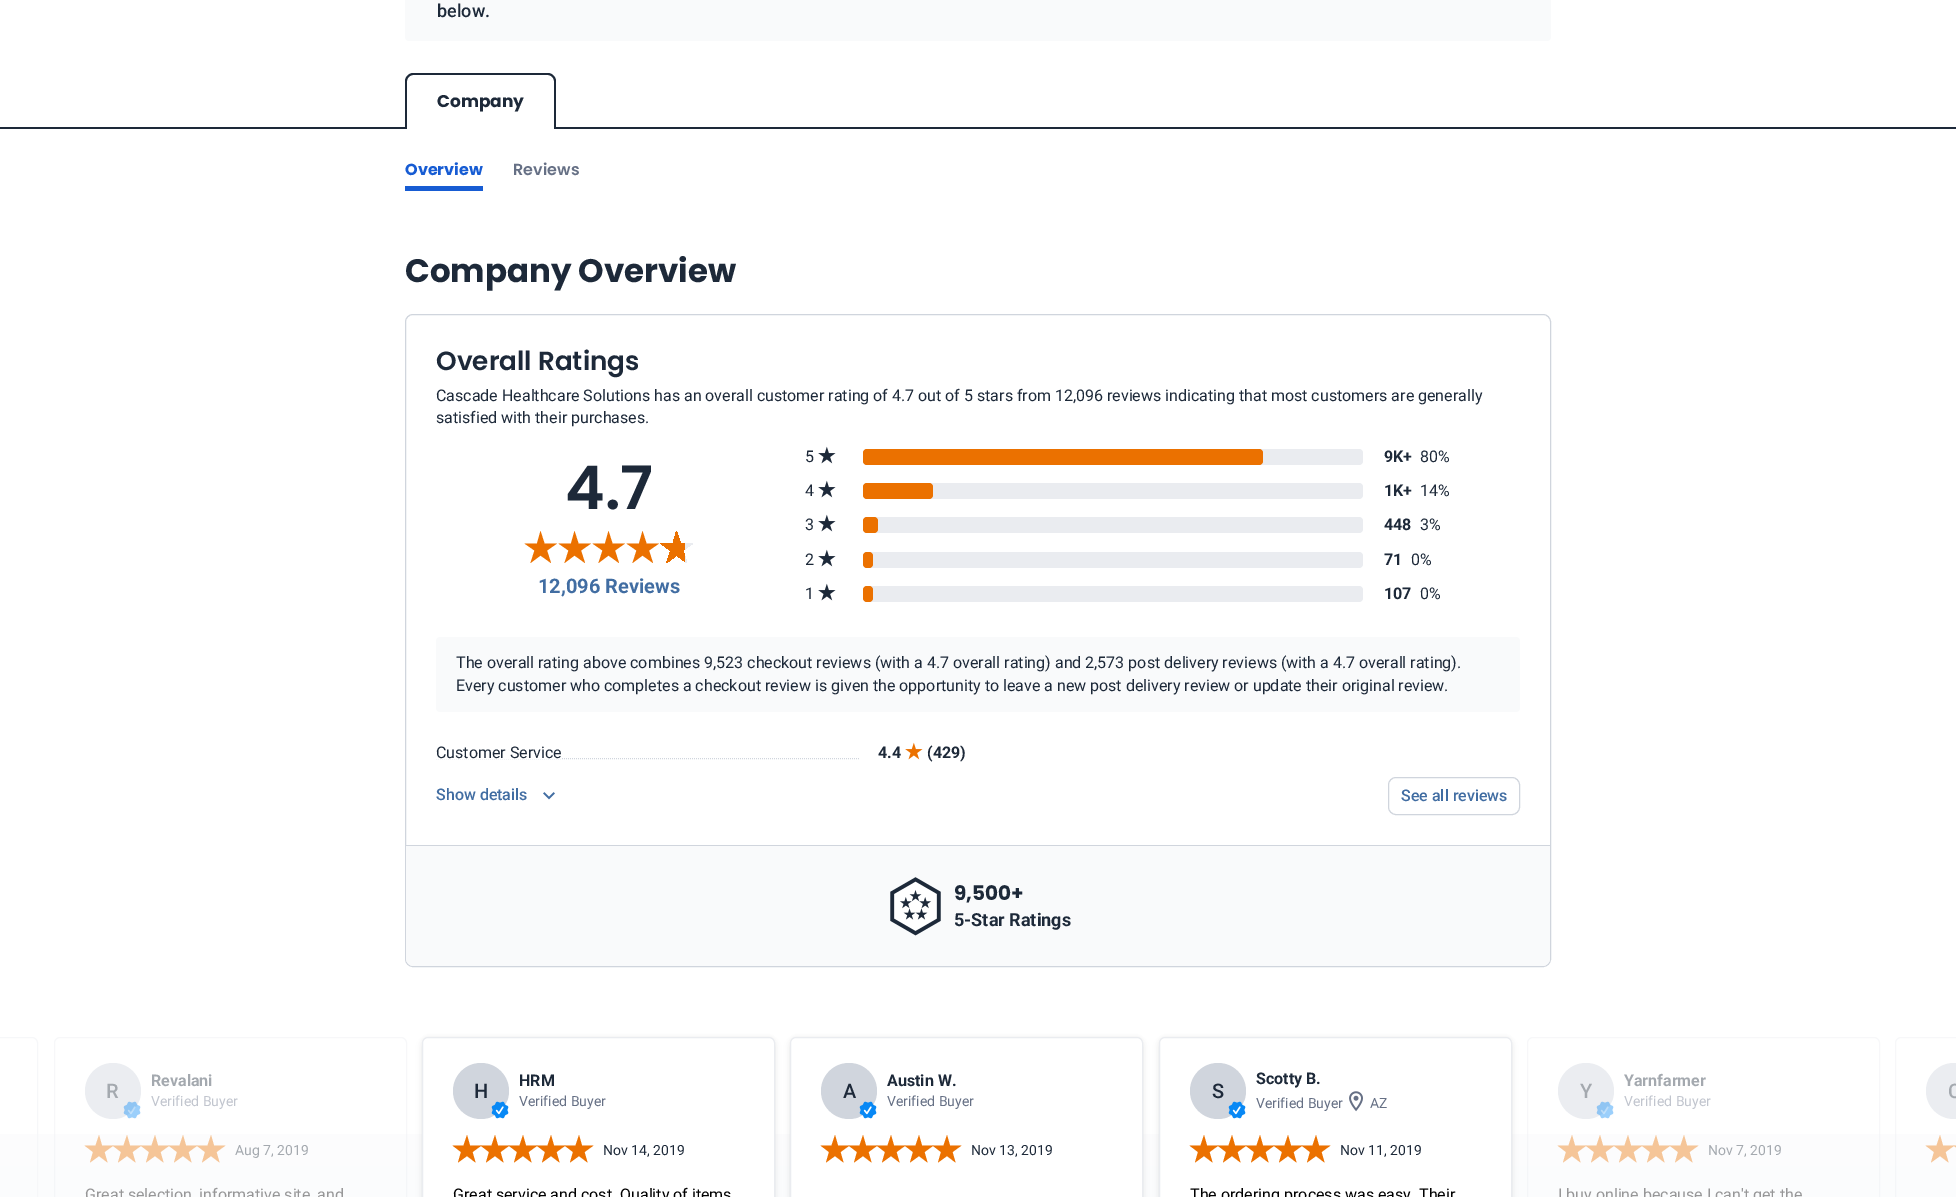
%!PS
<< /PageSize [1956 1197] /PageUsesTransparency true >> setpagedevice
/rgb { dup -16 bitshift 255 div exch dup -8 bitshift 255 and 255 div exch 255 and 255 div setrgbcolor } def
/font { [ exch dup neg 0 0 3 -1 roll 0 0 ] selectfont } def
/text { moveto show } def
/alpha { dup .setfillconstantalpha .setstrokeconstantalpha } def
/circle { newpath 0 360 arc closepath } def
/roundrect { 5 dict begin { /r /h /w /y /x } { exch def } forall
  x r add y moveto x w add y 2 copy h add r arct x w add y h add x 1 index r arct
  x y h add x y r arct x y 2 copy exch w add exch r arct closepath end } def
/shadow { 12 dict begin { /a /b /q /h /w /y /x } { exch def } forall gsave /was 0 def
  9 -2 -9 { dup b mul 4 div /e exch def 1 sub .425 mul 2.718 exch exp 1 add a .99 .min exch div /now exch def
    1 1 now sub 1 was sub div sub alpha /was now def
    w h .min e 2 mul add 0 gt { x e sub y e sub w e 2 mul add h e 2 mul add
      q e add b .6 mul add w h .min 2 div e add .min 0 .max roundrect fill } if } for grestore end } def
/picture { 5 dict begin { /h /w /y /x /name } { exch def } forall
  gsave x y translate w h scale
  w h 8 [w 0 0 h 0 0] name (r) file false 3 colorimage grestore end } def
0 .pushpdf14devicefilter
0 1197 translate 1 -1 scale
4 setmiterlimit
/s1 { /Roboto-Medium 18 font 16#1D2939 rgb } def
/s2 { /Poppins-Bold 17 font 16#1D2939 rgb } def
/s3 { /Poppins-Bold 16 font 16#175CD3 rgb } def
/s4 { /Poppins-SemiBold 16 font 16#667085 rgb } def
/s5 { /Poppins-Bold 32.5 font 16#1D2939 rgb } def
/s6 { /Poppins-SemiBold 26.25 font 16#1D2939 rgb } def
/s7 { /Roboto-Regular 16 font 16#1D2939 rgb } def
/s8 { /Poppins-SemiBold 60 font 16#1D2939 rgb } def
/s9 { /Roboto-Bold 20 font 16#416DA2 rgb } def
/s10 { /Roboto-Bold 16 font 16#1D2939 rgb } def
/s11 { /Roboto-Medium 16 font 16#416DA2 rgb } def
/s12 { /Poppins-Bold 20 font 16#1D2939 rgb } def
/s13 { /Roboto-Bold 18 font 16#1D2939 rgb } def
/s14 { /Roboto-Medium 20 font 16#A4A9AF rgb } def
/s15 { /Roboto-Bold 16 font 16#A4A9AF rgb } def
/s16 { /Roboto-Regular 14 font 16#C1C5CE rgb } def
/s17 { /Roboto-Regular 14 font 16#A4A9AF rgb } def
/s18 { /Roboto-Regular 16 font 16#979798 rgb } def
/s19 { /Roboto-Medium 20 font 16#1D2939 rgb } def
/s20 { /Roboto-Regular 14 font 16#667085 rgb } def
/s21 { /Roboto-Regular 14 font 16#1D2939 rgb } def
/s22 { /Roboto-Regular 16 font 16#000000 rgb } def
16#FFFFFF rgb
0 0 1956 1197 rectfill
16#F9FAFB rgb
405 -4 1146 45 4 roundrect fill
s1
(below.) 437 17 text
0 127 1956 2 rectfill
16#FFFFFF rgb
413 73 moveto 548 73 lineto 552.5 73 556 76.5 556 81 curveto 556 129 lineto 405 129 lineto 405 81 lineto 405 76.5 408.5 73 413 73 curveto closepath fill
16#1D2939 rgb
413 73 moveto 548 73 lineto 552 73 556 77 556 81 curveto 556 129 lineto 405 129 lineto 405 81 lineto 405 77 409 73 413 73 curveto closepath 413 75 moveto 548 75 lineto 551 75 554 78 554 81 curveto 554 129 lineto 407 129 lineto 407 81 lineto 407 78 410 75 413 75 curveto closepath eofill
s2
(Company) 437 107 text
s3
(Overview) 405 175 text
405 186 78 5 rectfill
s4
(Reviews) 513 175 text
s5
(Company Overview) 405 282 text
16#D0D5DD rgb
405.5 314.5 1145 652 7.5 roundrect stroke
s6
(Overall Ratings) 436 370 text
s7
(Cascade Healthcare Solutions has an overall customer rating of 4.7 out of 5 stars from 12,096 reviews indicating that most customers are generally) 436 401 text
(satisfied with their purchases.) 436 423 text
s8
(4.7) 565 509 text
16#EB7100 rgb
540.5 531 moveto 544.5 543.5 lineto 557 543.5 lineto 547 550.5 lineto 551 563 lineto 540.5 555.5 lineto 530.5 563 lineto 534.5 550.5 lineto 524.5 543.5 lineto 537 543.5 lineto closepath fill
574.5 531 moveto 578.5 543.5 lineto 591 543.5 lineto 581 550.5 lineto 585 563 lineto 574.5 555.5 lineto 564.5 563 lineto 568.5 550.5 lineto 558.5 543.5 lineto 571 543.5 lineto closepath fill
608.5 531 moveto 612.5 543.5 lineto 625 543.5 lineto 615 550.5 lineto 619 563 lineto 608.5 555.5 lineto 598.5 563 lineto 602.5 550.5 lineto 592.5 543.5 lineto 605 543.5 lineto closepath fill
642.5 531 moveto 646.5 543.5 lineto 659 543.5 lineto 649 550.5 lineto 653 563 lineto 642.5 555.5 lineto 632.5 563 lineto 636.5 550.5 lineto 626.5 543.5 lineto 639 543.5 lineto closepath fill
gsave 676.5 531 moveto 680.5 543.5 lineto 693 543.5 lineto 683 550.5 lineto 687 563 lineto 676.5 555.5 lineto 666.5 563 lineto 670.5 550.5 lineto 660.5 543.5 lineto 673 543.5 lineto closepath clip newpath
<< /ShadingType 2 /ColorSpace /DeviceRGB /Coords [660 547 694 547] /Extend [true true] /Function << /FunctionType 3 /Domain [0 1] /Functions [<< /FunctionType 2 /Domain [0 1] /C0 [0.922 0.443 0] /C1 [0.922 0.443 0] /N 1 >> << /FunctionType 2 /Domain [0 1] /C0 [0.918 0.925 0.941] /C1 [0.918 0.925 0.941] /N 1 >>] /Bounds [0.75] /Encode [0 1 0 1] >> >> shfill grestore
s9
(12,096 Reviews) 538 593 text
s7
(5) 805 462 text
(pic1.raw) 818 446 18 18 picture
16#EAECF0 rgb
863 449 500 16 4 roundrect fill
16#EB7100 rgb
863 449 400 16 4 roundrect fill
s10
(9K+) 1384 462 text
s7
(80%) 1420 462 text
(4) 805 496 text
(pic1.raw) 818 480 18 18 picture
16#EAECF0 rgb
863 483 500 16 4 roundrect fill
16#EB7100 rgb
863 483 70 16 4 roundrect fill
s10
(1K+) 1384 496 text
s7
(14%) 1420 496 text
(3) 805 530 text
(pic1.raw) 818 514 18 18 picture
16#EAECF0 rgb
863 517 500 16 4 roundrect fill
16#EB7100 rgb
863 517 15 16 4 roundrect fill
s10
(448) 1384 530 text
s7
(3%) 1420 530 text
(2) 805 565 text
(pic1.raw) 818 549 18 18 picture
16#EAECF0 rgb
863 552 500 16 4 roundrect fill
16#EB7100 rgb
863 552 10 16 4 roundrect fill
s10
(71) 1384 565 text
s7
(0%) 1411 565 text
(1) 805 599 text
(pic1.raw) 818 583 18 18 picture
16#EAECF0 rgb
863 586 500 16 4 roundrect fill
16#EB7100 rgb
863 586 10 16 4 roundrect fill
s10
(107) 1384 599 text
s7
(0%) 1420 599 text
16#F9FAFB rgb
436 637 1084 75 4 roundrect fill
s7
(The overall rating above combines 9,523 checkout reviews \(with a 4.7 overall rating\) and 2,573 post delivery reviews \(with a 4.7 overall rating\).) 456 668 text
(Every customer who completes a checkout review is given the opportunity to leave a new post delivery review or update their original review.) 456 691 text
16#D0D5DD rgb
[1 1] 0 setdash
436 758.5 moveto 860 758.5 lineto stroke
16#FFFFFF rgb
436 758 125 1 rectfill
s7
(Customer Service) 436 758 text
s10
(4.4) 878 758 text
(pic2.raw) 905 742 18 18 picture
(\(429\)) 927 758 text
s11
(Show details) 436 800 text
(pic3.raw) 543 792 12 8 picture
16#D0D5DD rgb
[] 0 setdash
1388.5 777.5 131 37 7.5 roundrect stroke
s11
(See all reviews) 1401 801 text
16#F9FAFB rgb
406 845 moveto 1550 845 lineto 1550 958 lineto 1550 962.5 1546.5 966 1542 966 curveto 414 966 lineto 409.5 966 406 962.5 406 958 curveto closepath fill
16#D0D5DD rgb
406 845 1144 1 rectfill
(pic4.raw) 890 877 51 59 picture
s12
(9,500+) 954 900 text
s13
(5-Star Ratings) 954 926 text
gsave 0 1134 moveto 1956 1134 lineto 1956 1197 lineto 0 1197 lineto closepath clip newpath
<< /ShadingType 2 /ColorSpace /DeviceRGB /Coords [978 1037 978 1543] /Extend [true true] /Function << /FunctionType 2 /Domain [0 1] /C0 [1 1 1] /C1 [0.949 0.957 0.969] /N 1 >> >> shfill grestore
16#F6F7F9 rgb
-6.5 1037.5 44 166 5.5 roundrect stroke
0.4 alpha
16#EAECF0 rgb
54.5 1037.5 352 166 5.5 roundrect stroke
1 alpha
16#EBEDF1 rgb
113 1091 28 circle fill
s14
(R) 106 1098 text
(pic5.raw) 123 1101 18 18 picture
s15
(Revalani) 151 1086 text
s16
(Verified Buyer) 151 1106 text
16#F5C598 rgb
99 1135 moveto 102 1145.5 lineto 113.5 1145.5 lineto 104.5 1152 lineto 107.5 1162.5 lineto 99 1156 lineto 90 1162.5 lineto 93 1152 lineto 84.5 1145.5 lineto 95.5 1145.5 lineto closepath fill
127 1135 moveto 130 1145.5 lineto 141.5 1145.5 lineto 132.5 1152 lineto 135.5 1162.5 lineto 127 1156 lineto 118 1162.5 lineto 121 1152 lineto 112.5 1145.5 lineto 123.5 1145.5 lineto closepath fill
155 1135 moveto 158 1145.5 lineto 169.5 1145.5 lineto 160.5 1152 lineto 163.5 1162.5 lineto 155 1156 lineto 146 1162.5 lineto 149 1152 lineto 140.5 1145.5 lineto 151.5 1145.5 lineto closepath fill
183 1135 moveto 186 1145.5 lineto 197.5 1145.5 lineto 188.5 1152 lineto 191.5 1162.5 lineto 183 1156 lineto 174 1162.5 lineto 177 1152 lineto 168.5 1145.5 lineto 179.5 1145.5 lineto closepath fill
211 1135 moveto 214 1145.5 lineto 225.5 1145.5 lineto 216.5 1152 lineto 219.5 1162.5 lineto 211 1156 lineto 202 1162.5 lineto 205 1152 lineto 196.5 1145.5 lineto 207.5 1145.5 lineto closepath fill
s17
(Aug 7, 2019) 235 1155 text
s18
(Great selection, informative site, and) 85 1200 text
16#101828 rgb
422 1037 353 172 6 2 0.06 shadow
424 1043 349 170 4 4 0.1 shadow
16#FFFFFF rgb
422.5 1037.5 352 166 5.5 roundrect gsave fill grestore
16#EAECF0 rgb
stroke
16#D0D5DD rgb
481 1091 28 circle fill
s19
(H) 474 1098 text
(pic6.raw) 491 1101 18 18 picture
s10
(HRM) 519 1086 text
s20
(Verified Buyer) 519 1106 text
16#EB7100 rgb
467 1135 moveto 470 1145.5 lineto 481.5 1145.5 lineto 472.5 1152 lineto 475.5 1162.5 lineto 467 1156 lineto 458 1162.5 lineto 461 1152 lineto 452.5 1145.5 lineto 463.5 1145.5 lineto closepath fill
495 1135 moveto 498 1145.5 lineto 509.5 1145.5 lineto 500.5 1152 lineto 503.5 1162.5 lineto 495 1156 lineto 486 1162.5 lineto 489 1152 lineto 480.5 1145.5 lineto 491.5 1145.5 lineto closepath fill
523 1135 moveto 526 1145.5 lineto 537.5 1145.5 lineto 528.5 1152 lineto 531.5 1162.5 lineto 523 1156 lineto 514 1162.5 lineto 517 1152 lineto 508.5 1145.5 lineto 519.5 1145.5 lineto closepath fill
551 1135 moveto 554 1145.5 lineto 565.5 1145.5 lineto 556.5 1152 lineto 559.5 1162.5 lineto 551 1156 lineto 542 1162.5 lineto 545 1152 lineto 536.5 1145.5 lineto 547.5 1145.5 lineto closepath fill
579 1135 moveto 582 1145.5 lineto 593.5 1145.5 lineto 584.5 1152 lineto 587.5 1162.5 lineto 579 1156 lineto 570 1162.5 lineto 573 1152 lineto 564.5 1145.5 lineto 575.5 1145.5 lineto closepath fill
s21
(Nov 14, 2019) 603 1155 text
s22
(Great service and cost. Quality of items) 453 1200 text
16#101828 rgb
790 1037 353 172 6 2 0.06 shadow
792 1043 349 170 4 4 0.1 shadow
16#FFFFFF rgb
790.5 1037.5 352 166 5.5 roundrect gsave fill grestore
16#EAECF0 rgb
stroke
16#D0D5DD rgb
849 1091 28 circle fill
s19
(A) 843 1098 text
(pic6.raw) 859 1101 18 18 picture
s10
(Austin W.) 887 1086 text
s20
(Verified Buyer) 887 1106 text
16#EB7100 rgb
835 1135 moveto 838 1145.5 lineto 849.5 1145.5 lineto 840.5 1152 lineto 843.5 1162.5 lineto 835 1156 lineto 826 1162.5 lineto 829 1152 lineto 820.5 1145.5 lineto 831.5 1145.5 lineto closepath fill
863 1135 moveto 866 1145.5 lineto 877.5 1145.5 lineto 868.5 1152 lineto 871.5 1162.5 lineto 863 1156 lineto 854 1162.5 lineto 857 1152 lineto 848.5 1145.5 lineto 859.5 1145.5 lineto closepath fill
891 1135 moveto 894 1145.5 lineto 905.5 1145.5 lineto 896.5 1152 lineto 899.5 1162.5 lineto 891 1156 lineto 882 1162.5 lineto 885 1152 lineto 876.5 1145.5 lineto 887.5 1145.5 lineto closepath fill
919 1135 moveto 922 1145.5 lineto 933.5 1145.5 lineto 924.5 1152 lineto 927.5 1162.5 lineto 919 1156 lineto 910 1162.5 lineto 913 1152 lineto 904.5 1145.5 lineto 915.5 1145.5 lineto closepath fill
947 1135 moveto 950 1145.5 lineto 961.5 1145.5 lineto 952.5 1152 lineto 955.5 1162.5 lineto 947 1156 lineto 938 1162.5 lineto 941 1152 lineto 932.5 1145.5 lineto 943.5 1145.5 lineto closepath fill
s21
(Nov 13, 2019) 971 1155 text
16#101828 rgb
1159 1037 353 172 6 2 0.06 shadow
1161 1043 349 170 4 4 0.1 shadow
16#FFFFFF rgb
1159.5 1037.5 352 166 5.5 roundrect gsave fill grestore
16#EAECF0 rgb
stroke
16#D0D5DD rgb
1218 1091 28 circle fill
s19
(S) 1212 1098 text
(pic6.raw) 1228 1101 18 18 picture
s10
(Scotty B.) 1256 1084 text
s20
(Verified Buyer) 1256 1108 text
(pic7.raw) 1349 1091 14 21 picture
(AZ) 1370 1108 text
16#EB7100 rgb
1204 1135 moveto 1207 1145.5 lineto 1218.5 1145.5 lineto 1209.5 1152 lineto 1212.5 1162.5 lineto 1204 1156 lineto 1195 1162.5 lineto 1198 1152 lineto 1189.5 1145.5 lineto 1200.5 1145.5 lineto closepath fill
1232 1135 moveto 1235 1145.5 lineto 1246.5 1145.5 lineto 1237.5 1152 lineto 1240.5 1162.5 lineto 1232 1156 lineto 1223 1162.5 lineto 1226 1152 lineto 1217.5 1145.5 lineto 1228.5 1145.5 lineto closepath fill
1260 1135 moveto 1263 1145.5 lineto 1274.5 1145.5 lineto 1265.5 1152 lineto 1268.5 1162.5 lineto 1260 1156 lineto 1251 1162.5 lineto 1254 1152 lineto 1245.5 1145.5 lineto 1256.5 1145.5 lineto closepath fill
1288 1135 moveto 1291 1145.5 lineto 1302.5 1145.5 lineto 1293.5 1152 lineto 1296.5 1162.5 lineto 1288 1156 lineto 1279 1162.5 lineto 1282 1152 lineto 1273.5 1145.5 lineto 1284.5 1145.5 lineto closepath fill
1316 1135 moveto 1319 1145.5 lineto 1330.5 1145.5 lineto 1321.5 1152 lineto 1324.5 1162.5 lineto 1316 1156 lineto 1307 1162.5 lineto 1310 1152 lineto 1301.5 1145.5 lineto 1312.5 1145.5 lineto closepath fill
s21
(Nov 11, 2019) 1340 1155 text
s22
(The ordering process was easy. Their) 1190 1200 text
0.4 alpha
16#EAECF0 rgb
1527.5 1037.5 352 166 5.5 roundrect stroke
1 alpha
16#EBEDF1 rgb
1586 1091 28 circle fill
s14
(Y) 1580 1098 text
(pic5.raw) 1596 1101 18 18 picture
s15
(Yarnfarmer) 1624 1086 text
s16
(Verified Buyer) 1624 1106 text
16#F5C598 rgb
1572 1135 moveto 1575 1145.5 lineto 1586.5 1145.5 lineto 1577.5 1152 lineto 1580.5 1162.5 lineto 1572 1156 lineto 1563 1162.5 lineto 1566 1152 lineto 1557.5 1145.5 lineto 1568.5 1145.5 lineto closepath fill
1600 1135 moveto 1603 1145.5 lineto 1614.5 1145.5 lineto 1605.5 1152 lineto 1608.5 1162.5 lineto 1600 1156 lineto 1591 1162.5 lineto 1594 1152 lineto 1585.5 1145.5 lineto 1596.5 1145.5 lineto closepath fill
1628 1135 moveto 1631 1145.5 lineto 1642.5 1145.5 lineto 1633.5 1152 lineto 1636.5 1162.5 lineto 1628 1156 lineto 1619 1162.5 lineto 1622 1152 lineto 1613.5 1145.5 lineto 1624.5 1145.5 lineto closepath fill
1656 1135 moveto 1659 1145.5 lineto 1670.5 1145.5 lineto 1661.5 1152 lineto 1664.5 1162.5 lineto 1656 1156 lineto 1647 1162.5 lineto 1650 1152 lineto 1641.5 1145.5 lineto 1652.5 1145.5 lineto closepath fill
1684 1135 moveto 1687 1145.5 lineto 1698.5 1145.5 lineto 1689.5 1152 lineto 1692.5 1162.5 lineto 1684 1156 lineto 1675 1162.5 lineto 1678 1152 lineto 1669.5 1145.5 lineto 1680.5 1145.5 lineto closepath fill
s17
(Nov 7, 2019) 1708 1155 text
s18
(I buy online because I can't get the) 1558 1200 text
0.4 alpha
16#EAECF0 rgb
1895.5 1037.5 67 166 5.5 roundrect stroke
1 alpha
16#EBEDF1 rgb
1954 1091 28 circle fill
s14
(C) 1948 1098 text
16#F5C598 rgb
1940 1135 moveto 1943 1145.5 lineto 1954.5 1145.5 lineto 1945.5 1152 lineto 1948.5 1162.5 lineto 1940 1156 lineto 1931 1162.5 lineto 1934 1152 lineto 1925.5 1145.5 lineto 1936.5 1145.5 lineto closepath fill
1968 1135 moveto 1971 1145.5 lineto 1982.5 1145.5 lineto 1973.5 1152 lineto 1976.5 1162.5 lineto 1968 1156 lineto 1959 1162.5 lineto 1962 1152 lineto 1953.5 1145.5 lineto 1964.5 1145.5 lineto closepath fill
.poppdf14devicefilter showpage
